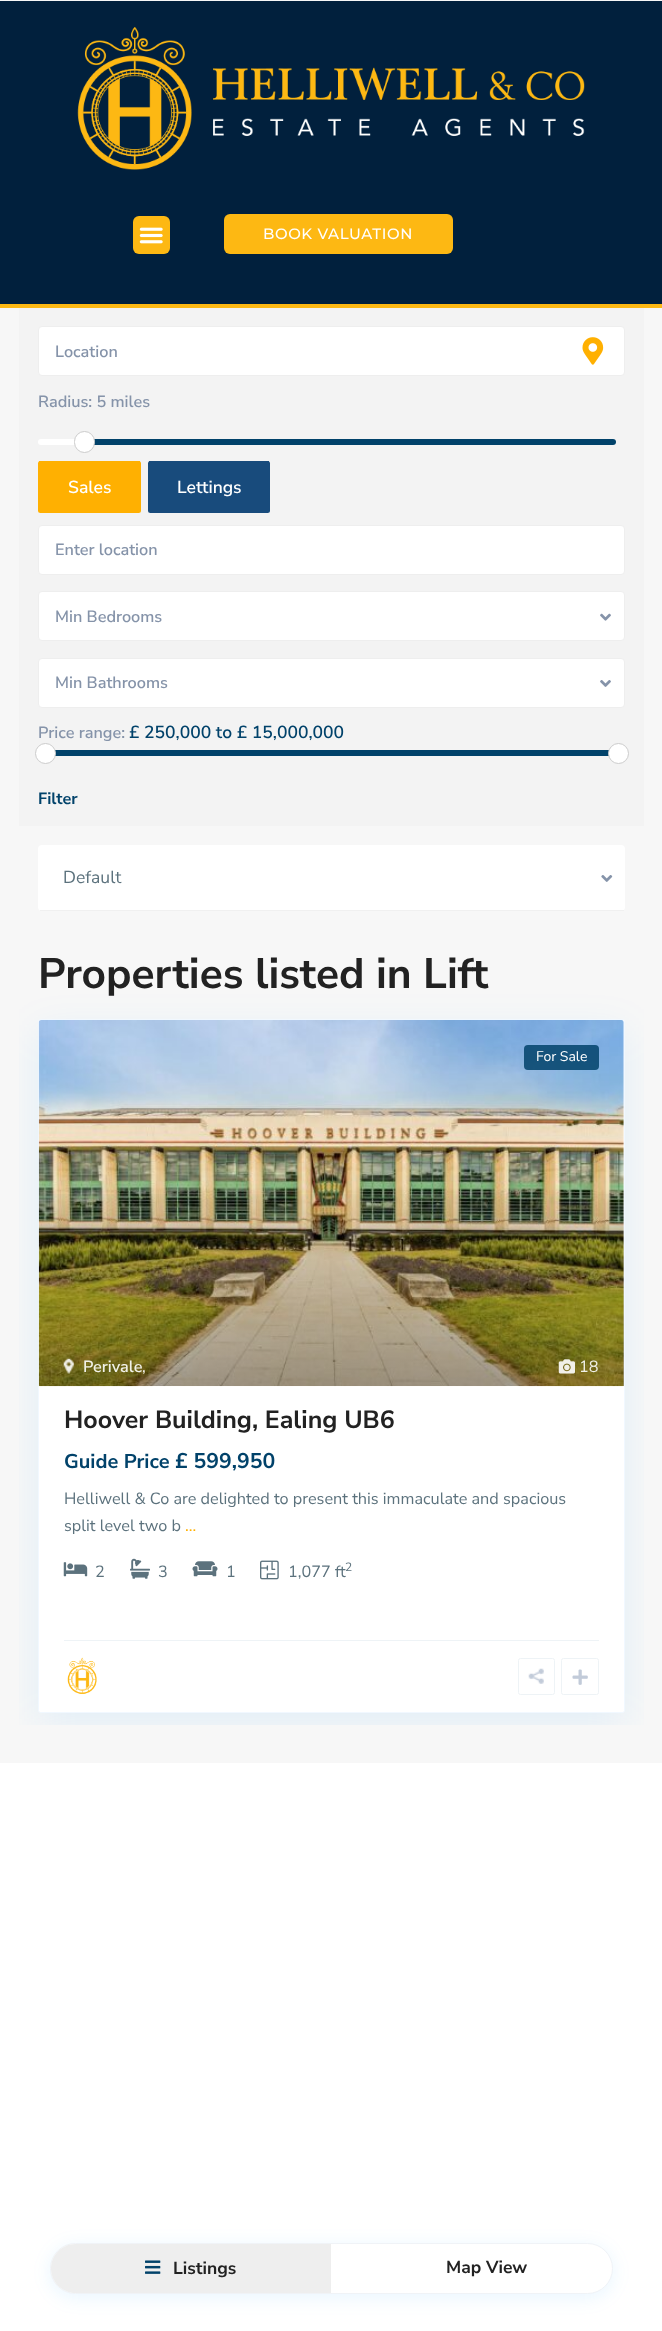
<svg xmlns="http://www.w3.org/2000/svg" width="662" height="2331">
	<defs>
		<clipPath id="clip1"><rect x="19" y="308" width="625" height="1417" /></clipPath>
		<linearGradient id="g1" gradientUnits="userSpaceOnUse" x1="331" y1="1386" x2="331" y2="1020"><stop offset="0" stop-color="#000000" stop-opacity="0.34" /><stop offset="0.56" stop-color="#000000" stop-opacity="0" /></linearGradient>
	</defs>
	<rect width="100%" height="100%" fill="#FFFFFF" />
	<rect x="0" y="0" width="662" height="1763" fill="#F7F7F7" />
	<rect x="0" y="1" width="662" height="303" fill="#01203D" />
	<rect x="0" y="304" width="662" height="4" fill="#FDB813" />
	<image x="77" y="27" width="508" height="143" href="assets/img1.png" />
	<rect x="133" y="216" width="37" height="38" rx="6" fill="#FDB813" />
	<image x="139" y="227" width="24" height="17" href="assets/img2.png" />
	<rect x="224" y="214" width="229" height="40" rx="6" fill="#FDB813" />
	<text x="263" y="239" font-family="Montserrat" font-size="15" font-weight="500" letter-spacing="0.6" fill="#FFFFFF">BOOK VALUATION</text>
	<rect x="19" y="308" width="625" height="518" fill="#F3F3F3" />
	<rect x="38.5" y="326.5" width="586" height="49" rx="3.5" fill="#FFFFFF" stroke="#EEEEEE" />
	<text x="55" y="357" font-family="Nunito Sans" font-size="16.25" font-weight="600" fill="#8593A9">Location</text>
	<image x="582" y="337" width="22" height="28" href="assets/img3.png" />
	<text x="38" y="407" font-family="Nunito Sans" font-size="16.25" font-weight="600" fill="#8593A9">Radius: 5 miles</text>
	<rect x="38" y="439" width="578" height="6" rx="3" fill="#FFFFFF" />
	<rect x="85" y="439" width="531" height="6" rx="3" fill="#01426A" />
	<rect x="74.5" y="431.5" width="20" height="21" rx="10" fill="#FFFFFF" stroke="#CCCCCC" />
	<rect x="38" y="461" width="103" height="52" rx="2.5" fill="#FFB001" />
	<rect x="39" y="461" width="101" height="1" fill="#FFB001" />
	<rect x="140" y="463" width="1" height="48" fill="#FFB001" />
	<rect x="38" y="463" width="1" height="48" fill="#FFB001" />
	<text x="68" y="493" font-family="Nunito Sans" font-size="17.5" font-weight="600" fill="#FFFFFF">Sales</text>
	<rect x="148" y="461" width="122" height="52" rx="2.5" fill="#184B7C" />
	<rect x="149" y="461" width="120" height="1" fill="#184B7C" />
	<rect x="148" y="463" width="1" height="48" fill="#184B7C" />
	<text x="177" y="493" font-family="Nunito Sans" font-size="17.5" font-weight="600" fill="#FFFFFF">Lettings</text>
	<rect x="38.5" y="525.5" width="586" height="49" rx="3.5" fill="#FFFFFF" stroke="#EEEEEE" />
	<text x="55" y="555" font-family="Nunito Sans" font-size="16.25" font-weight="600" fill="#8593A9">Enter location</text>
	<rect x="38.5" y="591.5" width="586" height="49" rx="3.5" fill="#FFFFFF" stroke="#EEEEEE" />
	<text x="55" y="622" font-family="Nunito Sans" font-size="16.25" font-weight="600" fill="#8593A9">Min Bedrooms</text>
	<image x="600" y="613" width="11" height="8" href="assets/img4.png" />
	<rect x="38.5" y="658.5" width="586" height="49" rx="3.5" fill="#FFFFFF" stroke="#EEEEEE" />
	<text x="55" y="688" font-family="Nunito Sans" font-size="16.25" font-weight="600" fill="#8593A9">Min Bathrooms</text>
	<image x="600" y="680" width="11" height="7" href="assets/img5.png" />
	<text x="38" y="738" font-family="Nunito Sans" font-size="16.25" font-weight="600" fill="#8593A9">Price range:</text>
	<text x="129" y="738" font-family="Nunito Sans" font-size="17.5" font-weight="600" fill="#01426A">£ 250,000 to £ 15,000,000</text>
	<rect x="55" y="750" width="554" height="6" fill="#01426A" />
	<circle cx="45.5" cy="753.5" r="10" fill="#FFFFFF" stroke="#CCCCCC" />
	<circle cx="618.5" cy="753.5" r="10" fill="#FFFFFF" stroke="#CCCCCC" />
	<text x="38" y="804" font-family="Nunito Sans" font-size="16.25" font-weight="700" fill="#01426A">Filter</text>
	<rect x="38" y="845" width="587" height="66" rx="4" fill="#FFFFFF" />
	<rect x="40" y="910" width="584" height="1" fill="#F0F0F0" />
	<text x="63" y="883" font-family="Nunito Sans" font-size="17.5" fill="#5C727D">Default</text>
	<image x="601" y="875" width="12" height="7" href="assets/img6.png" />
	<text x="38" y="988" font-family="Nunito Sans" font-size="42.5" font-weight="700" fill="#222222">Properties listed in Lift</text>
	<g clip-path="url(#clip1)">
		<rect x="38" y="1031" width="587" height="694" rx="2.5" fill="#0798FF" fill-opacity="0.09" filter="blur(19.5px)" />
	</g>
	<rect x="38.5" y="1019.5" width="586" height="693" rx="2" fill="#FFFFFF" stroke="#F1F8FF" />
	<image x="38" y="1020" width="586" height="367" href="assets/img7.png" />
	<rect x="524" y="1045" width="75" height="25" rx="4" fill="#01426A" fill-opacity="0.85" />
	<text x="536" y="1061" font-family="Nunito Sans" font-size="14" fill="#FFFFFF">For Sale</text>
	<rect x="39" y="1194" width="585" height="192" fill="url(#g1)" />
	<image x="63" y="1358" width="11" height="16" href="assets/img8.png" />
	<text x="83" y="1372" font-family="Nunito Sans" font-size="16.25" font-weight="600" fill="#F1F1E8">Perivale</text>
	<text x="142" y="1372" font-family="Nunito Sans" font-size="16.25" fill="#F1F1E8">,</text>
	<image x="558" y="1359" width="17" height="15" href="assets/img9.png" />
	<text x="579" y="1372" font-family="Nunito Sans" font-size="16.25" fill="#F1F1E8">18</text>
	<text x="64" y="1428" font-family="Nunito Sans" font-size="25" font-weight="700" fill="#222222">Hoover Building, Ealing UB6</text>
	<text x="64" y="1468" font-family="Nunito Sans" font-size="20" font-weight="700" fill="#01426A">Guide Price</text>
	<text x="175" y="1468" font-family="Nunito Sans" font-size="21.25" font-weight="700" fill="#01426A">£ 599,950</text>
	<g font-family="Nunito Sans" font-size="16.25" fill="#5C727D">
		<text x="64" y="1504">Helliwell &amp; Co are delighted to present this immaculate and spacious</text>
		<text x="64" y="1531">split level two b</text>
	</g>
	<text x="185" y="1531" font-family="Nunito Sans" font-size="16.25" fill="#FFB001">...</text>
	<image x="63" y="1562" width="25" height="15" href="assets/img10.png" />
	<text x="95" y="1577" font-family="Nunito Sans" font-size="16.25" fill="#5C727D">2</text>
	<image x="130" y="1558" width="20" height="21" href="assets/img11.png" />
	<text x="158" y="1577" font-family="Nunito Sans" font-size="16.25" fill="#5C727D">3</text>
	<image x="192" y="1561" width="26" height="16" href="assets/img12.png" />
	<text x="226" y="1577" font-family="Nunito Sans" font-size="16.25" fill="#5C727D">1</text>
	<image x="260" y="1560" width="19" height="20" href="assets/img13.png" />
	<text x="288" y="1577" font-family="Nunito Sans" font-size="16.25" fill="#5C727D">1,077 ft</text>
	<text x="345" y="1571" font-family="Nunito Sans" font-size="12" fill="#5C727D">2</text>
	<rect x="64" y="1640" width="535" height="1" fill="#EEF3F6" />
	<image x="67" y="1657" width="30" height="37" href="assets/img14.png" />
	<image x="528" y="1668" width="16" height="16" href="assets/img15.png" />
	<rect x="518.5" y="1658.5" width="36" height="36" rx="2" fill="none" stroke="#EEF3F6" />
	<rect x="561.5" y="1658.5" width="37" height="36" rx="2" fill="none" stroke="#EEF3F6" />
	<image x="572" y="1669" width="16" height="16" href="assets/img16.png" />
	<rect x="50" y="2246" width="563" height="52" rx="26" fill="#0798FF" fill-opacity="0.09" filter="blur(9px)" />
	<rect x="50.5" y="2243.5" width="562" height="50" rx="25" fill="#FFFFFF" stroke="#F0F3F7" />
	<path d="M75.5 2244H331V2293H75.5C62 2293 51 2282 51 2268.5C51 2255 62 2244 75.5 2244Z" fill="#EEEEEE" />
	<image x="145" y="2260" width="16" height="14" href="assets/img17.png" />
	<g font-family="Nunito Sans" font-size="17.5" font-weight="700" fill="#222222">
		<text x="173" y="2274">Listings</text>
		<text x="446" y="2273">Map View</text>
	</g>
</svg>
